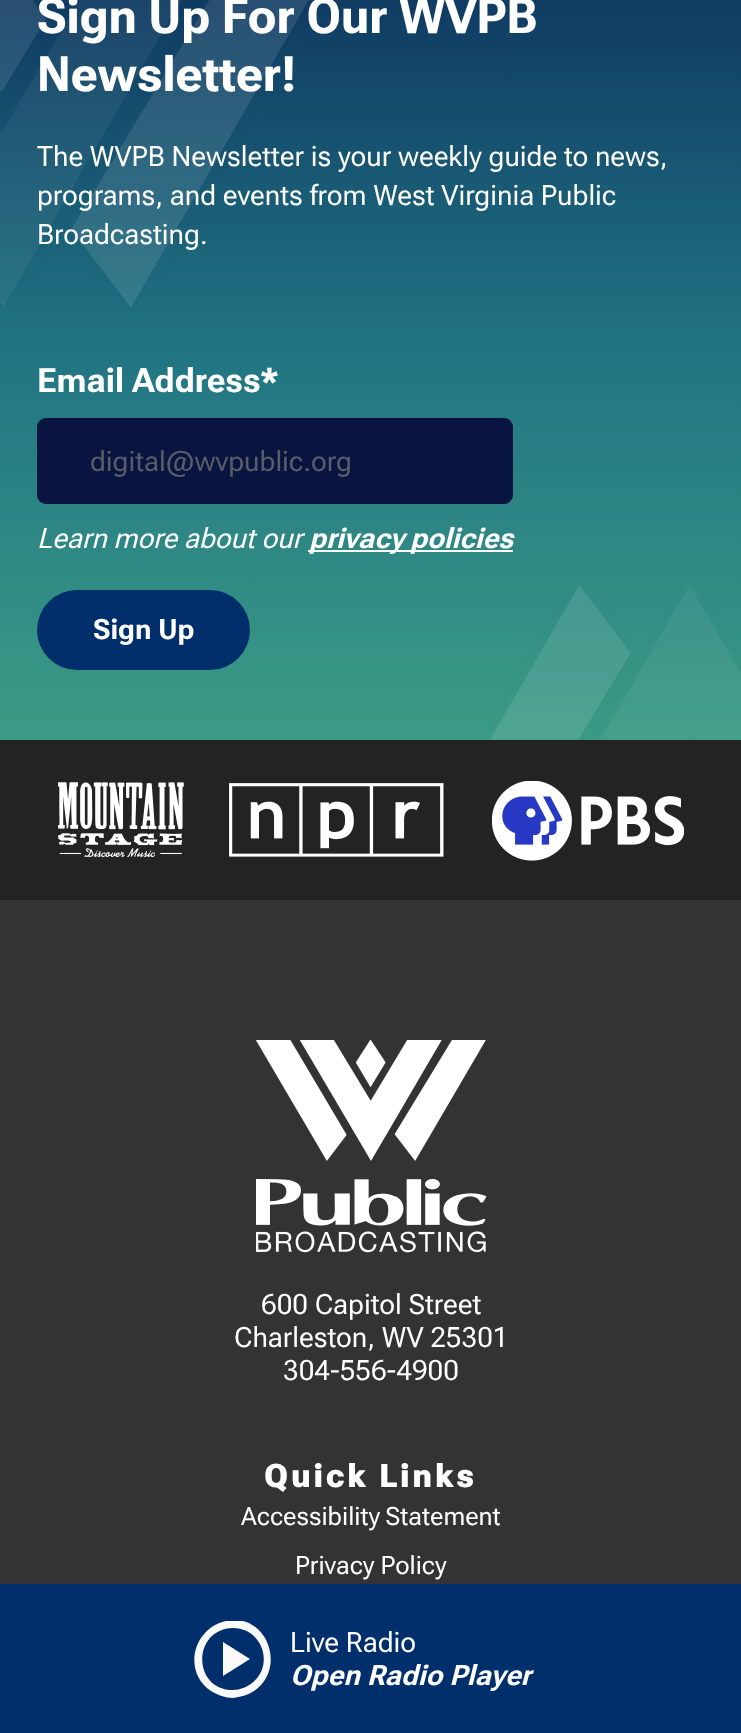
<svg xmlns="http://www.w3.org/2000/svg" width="741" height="1733">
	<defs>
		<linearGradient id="g1" gradientUnits="userSpaceOnUse" x1="371" y1="-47" x2="371" y2="740"><stop offset="0" stop-color="#0D335E" /><stop offset="0.5" stop-color="#217483" /><stop offset="1" stop-color="#3B9B85" /></linearGradient>
		<clipPath id="clip1"><rect x="194" y="1621" width="77" height="77" /></clipPath>
	</defs>
	<rect width="100%" height="100%" fill="#333333" />
	<rect x="0" y="0" width="741" height="740" fill="url(#g1)" />
	<image x="0" y="0" width="309" height="307" href="assets/img1.png" />
	<g font-family="Roboto Flex" font-size="49" font-weight="700" fill="#FFFFFF">
		<text x="37" y="33">Sign Up For Our WVPB</text>
		<text x="37" y="91">Newsletter!</text>
	</g>
	<g font-family="Roboto Flex" font-size="28" fill="#FFFFFF">
		<text x="37" y="166">The WVPB Newsletter is your weekly guide to news,</text>
		<text x="37" y="205">programs, and events from West Virginia Public</text>
		<text x="37" y="244">Broadcasting.</text>
	</g>
	<text x="37" y="392" font-family="'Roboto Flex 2'" font-size="33.5" font-weight="700" fill="#FFFFFF">Email Address*</text>
	<rect x="37" y="418" width="476" height="86" rx="9" fill="#091540" />
	<text x="90" y="471" font-family="Roboto Flex" font-size="28" fill="#5A5D68">digital@wvpublic.org</text>
	<text x="37" y="548" font-family="Roboto Flex" font-size="28" font-style="italic" fill="#FFFFFF">Learn more about our</text>
	<rect x="308" y="550" width="205" height="2" fill="#FFFFFF" />
	<text x="309" y="548" word-spacing="-1" font-family="Roboto Flex" font-size="28" font-weight="700" font-style="italic" fill="#FFFFFF">privacy policies</text>
	<rect x="37" y="590" width="213" height="80" rx="40" fill="#002F6C" />
	<text x="93" y="639" font-family="'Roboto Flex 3'" font-size="28" font-weight="700" fill="#FFFFFF">Sign Up</text>
	<image x="490" y="585" width="251" height="155" href="assets/img2.png" />
	<rect x="0" y="740" width="741" height="160" fill="#232323" />
	<image x="58" y="782" width="126" height="75" href="assets/img3.png" />
	<image x="229" y="783" width="215" height="74" href="assets/img4.png" />
	<image x="492" y="781" width="192" height="80" href="assets/img5.png" />
	<image x="256" y="1040" width="231" height="213" href="assets/img6.png" />
	<g font-family="Roboto Flex" font-size="28" fill="#FFFFFF">
		<text x="261" y="1314">600 Capitol Street</text>
		<text x="234" y="1347">Charleston, WV 25301</text>
		<text x="283" y="1380">304-556-4900</text>
	</g>
	<text x="264" y="1487" font-family="Roboto Flex" font-size="32.25" font-weight="900" letter-spacing="2.75" fill="#FFFFFF">Quick Links</text>
	<g font-family="'Roboto Flex 2'" font-size="25.25" fill="#FFFFFF">
		<text x="241" y="1525" word-spacing="-1">Accessibility Statement</text>
		<text x="295" y="1574">Privacy Policy</text>
	</g>
	<rect x="0" y="1584" width="741" height="149" fill="#002F6C" />
	<g clip-path="url(#clip1)">
		<path d="M223 1676L250 1659L223 1642ZM233 1698C225 1698 218 1695 211 1691C180 1670 195 1622 233 1620C270 1619 285 1670 254 1691C248 1695 240 1697 233 1698ZM233 1690C240 1690 247 1687 252 1683C275 1665 262 1628 233 1628C192 1629 192 1690 233 1690Z" fill="#FAFAFA" />
	</g>
	<text x="290" y="1652" font-family="Roboto Flex" font-size="28" fill="#FFFFFF">Live Radio</text>
	<text x="290" y="1685" font-family="Roboto Flex" font-size="28" font-weight="700" font-style="italic" fill="#FFFFFF">Open Radio Player</text>
</svg>
